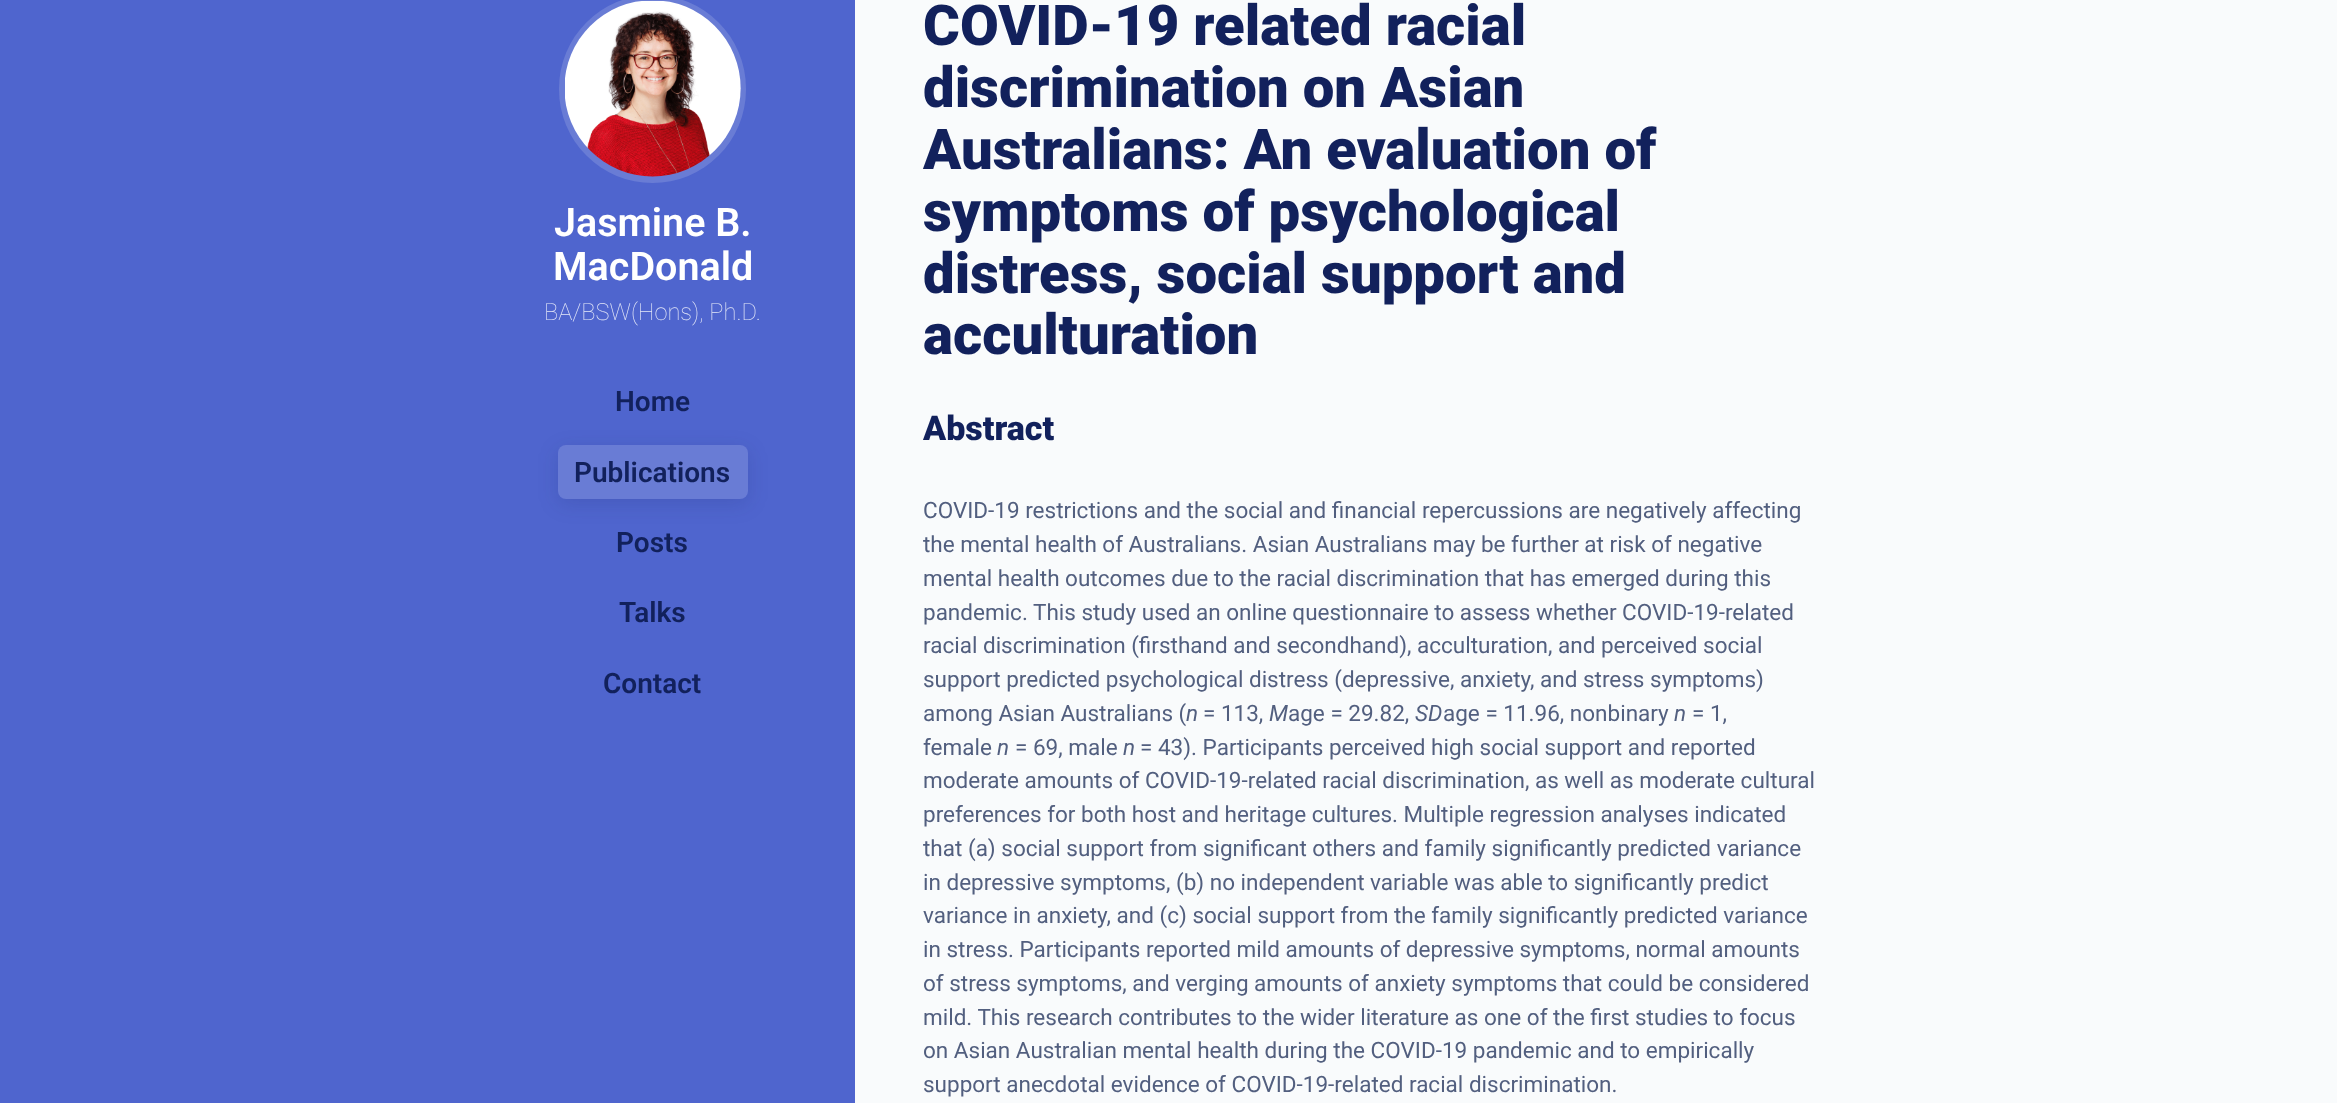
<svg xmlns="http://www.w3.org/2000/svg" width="2337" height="1103">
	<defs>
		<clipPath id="clip1"><path d="M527 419H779V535H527ZM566 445H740C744.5 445 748 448.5 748 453V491C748 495.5 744.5 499 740 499H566C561.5 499 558 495.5 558 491V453C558 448.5 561.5 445 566 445Z" clip-rule="evenodd" /></clipPath>
	</defs>
	<rect width="100%" height="100%" fill="#4F65CE" />
	<rect x="855" y="0" width="1482" height="1103" fill="#F9FBFC" />
	<rect x="559" y="-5" width="187" height="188" rx="93.5" fill="#697CD5" />
	<image x="565" y="0" width="176" height="177" href="assets/img1.png" />
	<g font-family="Roboto" font-size="39.5" font-weight="600" fill="#FFFFFF">
		<text x="554" y="236">Jasmine B.</text>
		<text x="553" y="280">MacDonald</text>
	</g>
	<text x="544" y="320" font-family="Roboto" font-size="23.6" font-weight="100" fill="#E5E8F8">BA/BSW(Hons), Ph.D.</text>
	<text x="615" y="411" font-family="Roboto" font-size="28" font-weight="600" fill="#12215C">Home</text>
	<g clip-path="url(#clip1)">
		<rect x="558" y="450" width="190" height="54" rx="8" fill="#12215C" fill-opacity="0.15" filter="blur(10px)" />
	</g>
	<rect x="558" y="445" width="190" height="54" rx="8" fill="#FFFFFF" fill-opacity="0.15" />
	<g font-family="Roboto" font-size="28" font-weight="600" fill="#12215C">
		<text x="574" y="482">Publications</text>
		<text x="616" y="552">Posts</text>
		<text x="619" y="622">Talks</text>
		<text x="603" y="693">Contact</text>
	</g>
	<g font-family="Roboto" font-size="56.25" font-weight="900" fill="#12215C">
		<text x="923" y="45">COVID-19 related racial</text>
		<text x="923" y="107">discrimination on Asian</text>
		<text x="923" y="169">Australians: An evaluation of</text>
		<text x="923" y="231">symptoms of psychological</text>
		<text x="923" y="293">distress, social support and</text>
		<text x="923" y="354">acculturation</text>
	</g>
	<text x="923" y="440" font-family="Roboto" font-size="34" font-weight="900" fill="#12215C">Abstract</text>
	<g font-family="Roboto" font-size="22.5" fill="#525F7F">
		<text x="923" y="518">COVID-19 restrictions and the social and financial repercussions are negatively affecting</text>
		<text x="923" y="552">the mental health of Australians. Asian Australians may be further at risk of negative</text>
		<text x="923" y="586">mental health outcomes due to the racial discrimination that has emerged during this</text>
		<text x="923" y="620">pandemic. This study used an online questionnaire to assess whether COVID-19-related</text>
		<text x="923" y="653">racial discrimination (firsthand and secondhand), acculturation, and perceived social</text>
		<text x="923" y="687">support predicted psychological distress (depressive, anxiety, and stress symptoms)</text>
		<text x="923" y="721">among Asian Australians (</text>
	</g>
	<text x="1186" y="721" font-family="Roboto" font-size="22.5" font-style="italic" fill="#525F7F">n</text>
	<text x="1203" y="721" font-family="Roboto" font-size="22.5" fill="#525F7F">= 113,</text>
	<text x="1269" y="721" font-family="Roboto" font-size="22.5" font-style="italic" fill="#525F7F">M</text>
	<text x="1288" y="721" font-family="Roboto" font-size="22.5" fill="#525F7F">age = 29.82,</text>
	<text x="1415" y="721" font-family="Roboto" font-size="22.5" font-style="italic" fill="#525F7F">SD</text>
	<text x="1443" y="721" font-family="Roboto" font-size="22.5" fill="#525F7F">age = 11.96, nonbinary</text>
	<text x="1674" y="721" font-family="Roboto" font-size="22.5" font-style="italic" fill="#525F7F">n</text>
	<g font-family="Roboto" font-size="22.5" fill="#525F7F">
		<text x="1692" y="721">= 1,</text>
		<text x="923" y="755">female</text>
	</g>
	<text x="997" y="755" font-family="Roboto" font-size="22.5" font-style="italic" fill="#525F7F">n</text>
	<text x="1015" y="755" font-family="Roboto" font-size="22.5" fill="#525F7F">= 69, male</text>
	<text x="1123" y="755" font-family="Roboto" font-size="22.5" font-style="italic" fill="#525F7F">n</text>
	<g font-family="Roboto" font-size="22.5" fill="#525F7F">
		<text x="1140" y="755">= 43). Participants perceived high social support and reported</text>
		<text x="923" y="788">moderate amounts of COVID-19-related racial discrimination, as well as moderate cultural</text>
		<text x="923" y="822">preferences for both host and heritage cultures. Multiple regression analyses indicated</text>
		<text x="923" y="856">that (a) social support from significant others and family significantly predicted variance</text>
		<text x="923" y="890">in depressive symptoms, (b) no independent variable was able to significantly predict</text>
		<text x="923" y="923">variance in anxiety, and (c) social support from the family significantly predicted variance</text>
		<text x="923" y="957">in stress. Participants reported mild amounts of depressive symptoms, normal amounts</text>
		<text x="923" y="991">of stress symptoms, and verging amounts of anxiety symptoms that could be considered</text>
		<text x="923" y="1025">mild. This research contributes to the wider literature as one of the first studies to focus</text>
		<text x="923" y="1058">on Asian Australian mental health during the COVID-19 pandemic and to empirically</text>
		<text x="923" y="1092">support anecdotal evidence of COVID-19-related racial discrimination.</text>
	</g>
</svg>
